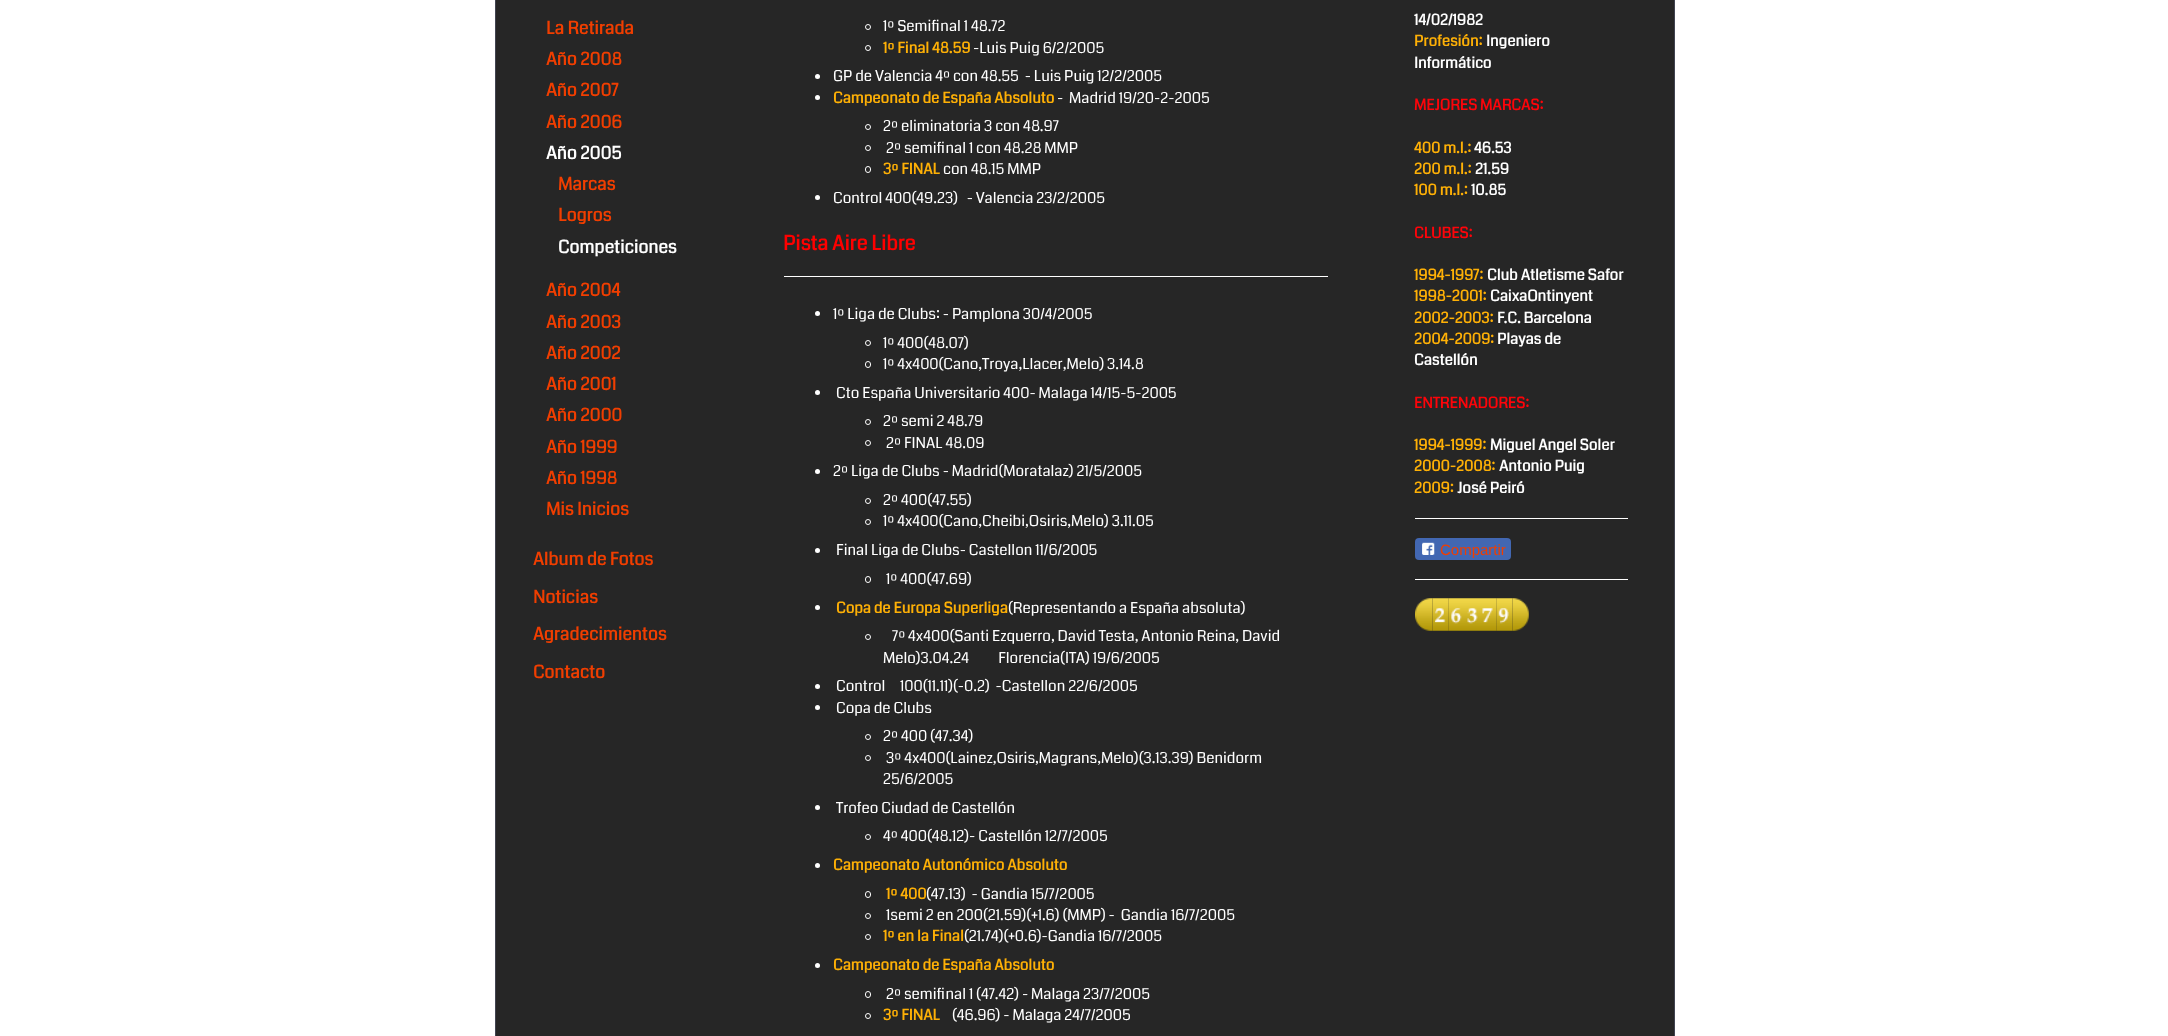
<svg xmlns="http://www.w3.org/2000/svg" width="2168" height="1036">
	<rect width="100%" height="100%" fill="#FFFFFF" />
	<rect x="495.5" y="-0.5" width="1179" height="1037" fill="#262626" stroke="#414350" />
	<g font-family="Coda" font-size="17.5" font-weight="700" fill="#F03E00">
		<text x="546" y="34">La Retirada</text>
		<text x="546" y="65">Año 2008</text>
		<text x="546" y="96">Año 2007</text>
		<text x="546" y="128">Año 2006</text>
	</g>
	<text x="546" y="159" font-family="Coda" font-size="17.5" font-weight="700" fill="#FFFFFF">Año 2005</text>
	<g font-family="Coda" font-size="17.5" font-weight="700" fill="#F03E00">
		<text x="558" y="190">Marcas</text>
		<text x="558" y="221">Logros</text>
	</g>
	<text x="558" y="253" font-family="Coda" font-size="17.5" font-weight="700" fill="#FFFFFF">Competiciones</text>
	<g font-family="Coda" font-size="17.5" font-weight="700" fill="#F03E00">
		<text x="546" y="296">Año 2004</text>
		<text x="546" y="328">Año 2003</text>
		<text x="546" y="359">Año 2002</text>
		<text x="546" y="390">Año 2001</text>
		<text x="546" y="421">Año 2000</text>
		<text x="546" y="453">Año 1999</text>
		<text x="546" y="484">Año 1998</text>
		<text x="546" y="515">Mis Inicios</text>
		<text x="533" y="565">Album de Fotos</text>
		<text x="533" y="603">Noticias</text>
		<text x="533" y="640">Agradecimientos</text>
		<text x="533" y="678">Contacto</text>
	</g>
	<circle cx="868" cy="27" r="2.5" fill="none" stroke="#FFFFFF" />
	<text x="883" y="31" font-family="Coda" font-size="15" fill="#FFFFFF">1º Semifinal 1 48.72</text>
	<circle cx="868" cy="48" r="2.5" fill="none" stroke="#FFFFFF" />
	<text x="883" y="53" font-family="Coda" font-size="15" font-weight="700" fill="#FEB006">1º Final 48.59</text>
	<text x="973" y="53" font-family="Coda" font-size="15" fill="#FFFFFF">-Luis Puig 6/2/2005</text>
	<circle cx="817.5" cy="76.5" r="2.5" fill="#FFFFFF" />
	<text x="833" y="81" font-family="Coda" font-size="15" fill="#FFFFFF" xml:space="preserve">GP de Valencia 4º con 48.55  - Luis Puig 12/2/2005</text>
	<circle cx="817.5" cy="97.5" r="2.5" fill="#FFFFFF" />
	<text x="833" y="103" font-family="Coda" font-size="15" font-weight="700" fill="#FEB006">Campeonato de España Absoluto</text>
	<text x="1057" y="103" font-family="Coda" font-size="15" fill="#FFFFFF" xml:space="preserve">-  Madrid 19/20-2-2005</text>
	<circle cx="868" cy="127" r="2.5" fill="none" stroke="#FFFFFF" />
	<text x="883" y="131" font-family="Coda" font-size="15" fill="#FFFFFF">2º eliminatoria 3 con 48.97</text>
	<circle cx="868" cy="148" r="2.5" fill="none" stroke="#FFFFFF" />
	<text x="886" y="153" font-family="Coda" font-size="15" fill="#FFFFFF">2º semifinal 1 con 48.28 MMP</text>
	<rect x="865.5" y="166.5" width="5" height="6" rx="2.5" fill="none" stroke="#FFFFFF" />
	<text x="883" y="174" font-family="Coda" font-size="15" font-weight="700" fill="#FEB006">3º FINAL</text>
	<text x="943" y="174" font-family="Coda" font-size="15" fill="#FFFFFF">con 48.15 MMP</text>
	<circle cx="817.5" cy="197.5" r="2.5" fill="#FFFFFF" />
	<text x="833" y="203" font-family="Coda" font-size="15" fill="#FFFFFF" xml:space="preserve">Control 400(49.23)   - Valencia 23/2/2005</text>
	<text x="783" y="250" font-family="Coda" font-size="20" font-weight="700" fill="#FF0000">Pista Aire Libre</text>
	<rect x="784" y="276" width="544" height="1" fill="#FFFFFF" />
	<circle cx="817.5" cy="313.5" r="2.5" fill="#FFFFFF" />
	<text x="833" y="319" font-family="Coda" font-size="15" fill="#FFFFFF">1º Liga de Clubs: - Pamplona 30/4/2005</text>
	<circle cx="868" cy="343" r="2.5" fill="none" stroke="#FFFFFF" />
	<text x="883" y="348" font-family="Coda" font-size="15" fill="#FFFFFF">1º 400(48.07)</text>
	<rect x="865.5" y="361.5" width="5" height="6" rx="2.5" fill="none" stroke="#FFFFFF" />
	<text x="883" y="369" font-family="Coda" font-size="15" fill="#FFFFFF">1º 4x400(Cano,Troya,Llacer,Melo) 3.14.8</text>
	<circle cx="817.5" cy="392.5" r="2.5" fill="#FFFFFF" />
	<text x="836" y="398" font-family="Coda" font-size="15" fill="#FFFFFF">Cto España Universitario 400- Malaga 14/15-5-2005</text>
	<circle cx="868" cy="422" r="2.5" fill="none" stroke="#FFFFFF" />
	<text x="883" y="426" font-family="Coda" font-size="15" fill="#FFFFFF">2º semi 2 48.79</text>
	<circle cx="868" cy="443" r="2.5" fill="none" stroke="#FFFFFF" />
	<text x="886" y="448" font-family="Coda" font-size="15" fill="#FFFFFF">2º FINAL 48.09</text>
	<circle cx="817.5" cy="471.5" r="2.5" fill="#FFFFFF" />
	<text x="833" y="476" font-family="Coda" font-size="15" fill="#FFFFFF">2º Liga de Clubs - Madrid(Moratalaz) 21/5/2005</text>
	<circle cx="868" cy="501" r="2.5" fill="none" stroke="#FFFFFF" />
	<text x="883" y="505" font-family="Coda" font-size="15" fill="#FFFFFF">2º 400(47.55)</text>
	<circle cx="868" cy="522" r="2.5" fill="none" stroke="#FFFFFF" />
	<text x="883" y="526" font-family="Coda" font-size="15" fill="#FFFFFF">1º 4x400(Cano,Cheibi,Osiris,Melo) 3.11.05</text>
	<circle cx="817.5" cy="550.5" r="2.5" fill="#FFFFFF" />
	<text x="836" y="555" font-family="Coda" font-size="15" fill="#FFFFFF">Final Liga de Clubs- Castellon 11/6/2005</text>
	<rect x="865.5" y="576.5" width="5" height="6" rx="2.5" fill="none" stroke="#FFFFFF" />
	<text x="886" y="584" font-family="Coda" font-size="15" fill="#FFFFFF">1º 400(47.69)</text>
	<circle cx="817.5" cy="607.5" r="2.5" fill="#FFFFFF" />
	<text x="836" y="613" font-family="Coda" font-size="15" font-weight="700" fill="#FEB006">Copa de Europa Superliga</text>
	<text x="1008" y="613" font-family="Coda" font-size="15" fill="#FFFFFF">(Representando a España absoluta)</text>
	<circle cx="868" cy="637" r="2.5" fill="none" stroke="#FFFFFF" />
	<g font-family="Coda" font-size="15" fill="#FFFFFF">
		<text x="892" y="641">7º 4x400(Santi Ezquerro, David Testa, Antonio Reina, David</text>
		<text x="883" y="663" xml:space="preserve">Melo)3.04.24          Florencia(ITA) 19/6/2005</text>
	</g>
	<circle cx="817.5" cy="686.5" r="2.5" fill="#FFFFFF" />
	<text x="836" y="691" font-family="Coda" font-size="15" fill="#FFFFFF" xml:space="preserve">Control     100(11.11)(-0.2)  -Castellon 22/6/2005</text>
	<circle cx="817.5" cy="707.5" r="2.5" fill="#FFFFFF" />
	<text x="836" y="713" font-family="Coda" font-size="15" fill="#FFFFFF">Copa de Clubs</text>
	<circle cx="868" cy="737" r="2.5" fill="none" stroke="#FFFFFF" />
	<text x="883" y="741" font-family="Coda" font-size="15" fill="#FFFFFF">2º 400 (47.34)</text>
	<circle cx="868" cy="758" r="2.5" fill="none" stroke="#FFFFFF" />
	<g font-family="Coda" font-size="15" fill="#FFFFFF">
		<text x="886" y="763">3º 4x400(Lainez,Osiris,Magrans,Melo)(3.13.39) Benidorm</text>
		<text x="883" y="784">25/6/2005</text>
	</g>
	<circle cx="817.5" cy="807.5" r="2.5" fill="#FFFFFF" />
	<text x="836" y="813" font-family="Coda" font-size="15" fill="#FFFFFF">Trofeo Ciudad de Castellón</text>
	<circle cx="868" cy="837" r="2.5" fill="none" stroke="#FFFFFF" />
	<text x="883" y="841" font-family="Coda" font-size="15" fill="#FFFFFF">4º 400(48.12)- Castellón 12/7/2005</text>
	<circle cx="817.5" cy="865.5" r="2.5" fill="#FFFFFF" />
	<text x="833" y="870" font-family="Coda" font-size="15" font-weight="700" fill="#FEB006">Campeonato Autonómico Absoluto</text>
	<rect x="865.5" y="891.5" width="5" height="6" rx="2.5" fill="none" stroke="#FFFFFF" />
	<text x="886" y="899" font-family="Coda" font-size="15" font-weight="700" fill="#FEB006">1º 400</text>
	<text x="926" y="899" font-family="Coda" font-size="15" fill="#FFFFFF" xml:space="preserve">(47.13)  - Gandia 15/7/2005</text>
	<circle cx="868" cy="916" r="2.5" fill="none" stroke="#FFFFFF" />
	<text x="886" y="920" font-family="Coda" font-size="15" fill="#FFFFFF" xml:space="preserve">1semi 2 en 200(21.59)(+1.6) (MMP) -  Gandia 16/7/2005</text>
	<circle cx="868" cy="937" r="2.5" fill="none" stroke="#FFFFFF" />
	<text x="883" y="941" font-family="Coda" font-size="15" font-weight="700" fill="#FEB006">1º en la Final</text>
	<text x="964" y="941" font-family="Coda" font-size="15" fill="#FFFFFF">(21.74)(+0.6)-Gandia 16/7/2005</text>
	<circle cx="817.5" cy="965.5" r="2.5" fill="#FFFFFF" />
	<text x="833" y="970" font-family="Coda" font-size="15" font-weight="700" fill="#FEB006">Campeonato de España Absoluto</text>
	<rect x="865.5" y="991.5" width="5" height="6" rx="2.5" fill="none" stroke="#FFFFFF" />
	<text x="886" y="999" font-family="Coda" font-size="15" fill="#FFFFFF">2º semifinal 1 (47.42) - Malaga 23/7/2005</text>
	<circle cx="868" cy="1016" r="2.5" fill="none" stroke="#FFFFFF" />
	<text x="883" y="1020" font-family="Coda" font-size="15" font-weight="700" fill="#FEB006">3º FINAL</text>
	<text x="952" y="1020" font-family="Coda" font-size="15" fill="#FFFFFF">(46.96) - Malaga 24/7/2005</text>
	<text x="1414" y="25" font-family="Coda" font-size="15" font-weight="700" fill="#FFFFFF">14/02/1982</text>
	<text x="1414" y="46" font-family="Coda" font-size="15" font-weight="700" fill="#FEB006">Profesión:</text>
	<g font-family="Coda" font-size="15" font-weight="700" fill="#FFFFFF">
		<text x="1486" y="46">Ingeniero</text>
		<text x="1414" y="68">Informático</text>
	</g>
	<text x="1414" y="110" font-family="Coda" font-size="15" font-weight="700" fill="#FD040A">MEJORES MARCAS:</text>
	<text x="1414" y="153" font-family="Coda" font-size="15" font-weight="700" fill="#FEB006">400 m.l.:</text>
	<text x="1474" y="153" font-family="Coda" font-size="15" font-weight="700" fill="#FFFFFF">46.53</text>
	<text x="1414" y="174" font-family="Coda" font-size="15" font-weight="700" fill="#FEB006">200 m.l.:</text>
	<text x="1475" y="174" font-family="Coda" font-size="15" font-weight="700" fill="#FFFFFF">21.59</text>
	<text x="1414" y="195" font-family="Coda" font-size="15" font-weight="700" fill="#FEB006">100 m.l.:</text>
	<text x="1471" y="195" font-family="Coda" font-size="15" font-weight="700" fill="#FFFFFF">10.85</text>
	<text x="1414" y="238" font-family="Coda" font-size="15" font-weight="700" fill="#FD040A">CLUBES:</text>
	<text x="1414" y="280" font-family="Coda" font-size="15" font-weight="700" fill="#FEB006">1994-1997:</text>
	<text x="1487" y="280" font-family="Coda" font-size="15" font-weight="700" fill="#FFFFFF">Club Atletisme Safor</text>
	<text x="1414" y="301" font-family="Coda" font-size="15" font-weight="700" fill="#FEB006">1998-2001:</text>
	<text x="1490" y="301" font-family="Coda" font-size="15" font-weight="700" fill="#FFFFFF">CaixaOntinyent</text>
	<text x="1414" y="323" font-family="Coda" font-size="15" font-weight="700" fill="#FEB006">2002-2003:</text>
	<text x="1497" y="323" font-family="Coda" font-size="15" font-weight="700" fill="#FFFFFF">F.C. Barcelona</text>
	<text x="1414" y="344" font-family="Coda" font-size="15" font-weight="700" fill="#FEB006">2004-2009:</text>
	<g font-family="Coda" font-size="15" font-weight="700" fill="#FFFFFF">
		<text x="1497" y="344">Playas de</text>
		<text x="1414" y="365">Castellón</text>
	</g>
	<text x="1414" y="408" font-family="Coda" font-size="15" font-weight="700" fill="#FD040A">ENTRENADORES:</text>
	<text x="1414" y="450" font-family="Coda" font-size="15" font-weight="700" fill="#FEB006">1994-1999:</text>
	<text x="1490" y="450" font-family="Coda" font-size="15" font-weight="700" fill="#FFFFFF">Miguel Angel Soler</text>
	<text x="1414" y="471" font-family="Coda" font-size="15" font-weight="700" fill="#FEB006">2000-2008:</text>
	<text x="1499" y="471" font-family="Coda" font-size="15" font-weight="700" fill="#FFFFFF">Antonio Puig</text>
	<text x="1414" y="493" font-family="Coda" font-size="15" font-weight="700" fill="#FEB006">2009:</text>
	<text x="1457" y="493" font-family="Coda" font-size="15" font-weight="700" fill="#FFFFFF">José Peiró</text>
	<rect x="1415" y="518" width="213" height="1" fill="#FFFFFF" />
	<rect x="1415" y="538" width="96" height="22" rx="4" fill="#4267B2" />
	<image x="1422" y="542" width="13" height="13" href="assets/img1.png" />
	<text x="1440" y="555" font-family="Liberation Sans" font-size="15" fill="#F03E00">Compartir</text>
	<rect x="1415" y="579" width="213" height="1" fill="#FFFFFF" />
	<image x="1415" y="598" width="18" height="33" href="assets/img2.png" />
	<image x="1432" y="598" width="17" height="33" href="assets/img3.png" />
	<image x="1448" y="598" width="17" height="33" href="assets/img4.png" />
	<image x="1465" y="598" width="15" height="33" href="assets/img5.png" />
	<image x="1480" y="598" width="17" height="33" href="assets/img6.png" />
	<image x="1496" y="598" width="17" height="33" href="assets/img7.png" />
	<image x="1512" y="598" width="17" height="33" href="assets/img8.png" />
</svg>
